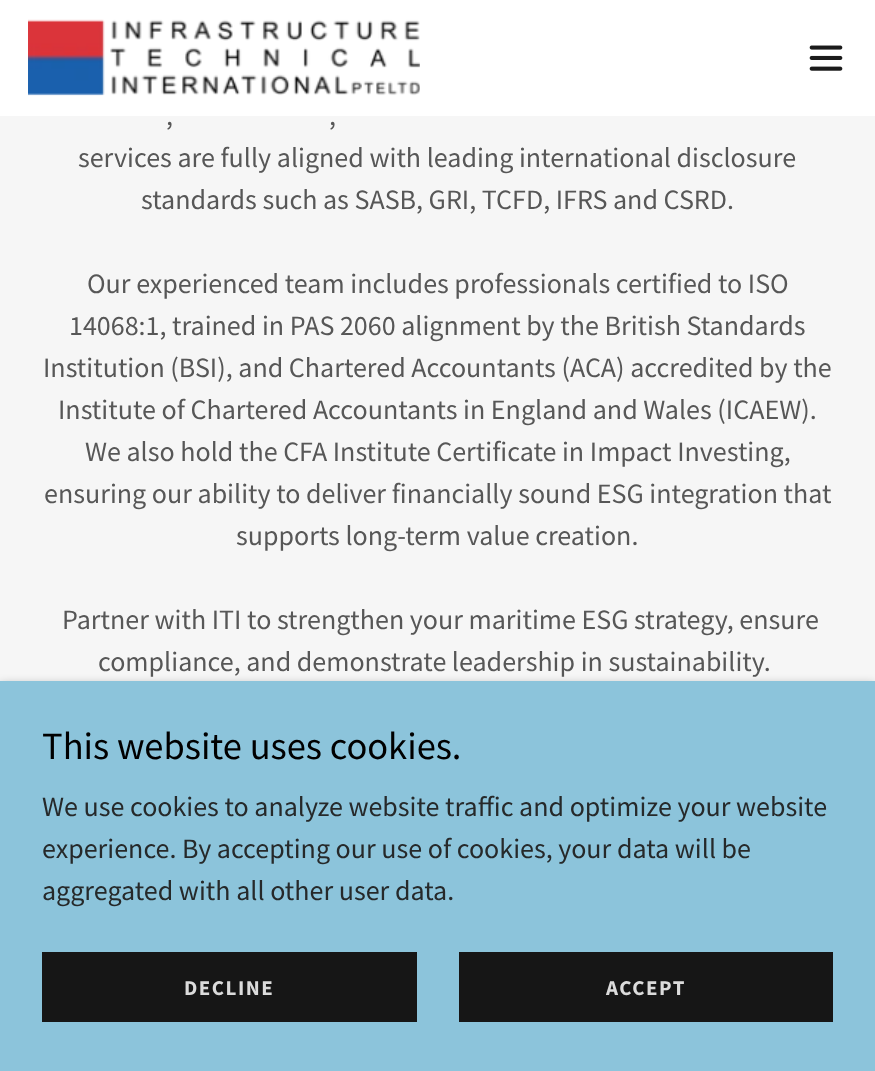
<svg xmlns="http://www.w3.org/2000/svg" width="875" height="1071">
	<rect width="100%" height="100%" fill="#F6F6F6" />
	<rect x="0" y="0" width="875" height="116" fill="#FFFFFF" />
	<image x="28" y="19" width="392" height="77" href="assets/img1.png" />
	<image x="809" y="45" width="34" height="26" href="assets/img2.png" />
	<g font-family="Source Sans Pro" font-size="28" fill="#575757">
		<text x="166" y="125">,</text>
		<text x="329" y="125">,</text>
		<text x="78" y="167">services are fully aligned with leading international disclosure</text>
		<text x="141" y="209">standards such as SASB, GRI, TCFD, IFRS and CSRD.</text>
		<text x="87" y="293">Our experienced team includes professionals certified to ISO</text>
		<text x="69" y="335">14068:1, trained in PAS 2060 alignment by the British Standards</text>
		<text x="43" y="377">Institution (BSI), and Chartered Accountants (ACA) accredited by the</text>
		<text x="58" y="419">Institute of Chartered Accountants in England and Wales (ICAEW).</text>
		<text x="85" y="461">We also hold the CFA Institute Certificate in Impact Investing,</text>
		<text x="44" y="503">ensuring our ability to deliver financially sound ESG integration that</text>
		<text x="236" y="545">supports long-term value creation.</text>
		<text x="62" y="629">Partner with ITI to strengthen your maritime ESG strategy, ensure</text>
		<text x="98" y="671">compliance, and demonstrate leadership in sustainability.</text>
	</g>
	<rect x="0" y="684" width="875" height="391" fill="#000000" fill-opacity="0.3" filter="blur(5px)" />
	<rect x="0" y="681" width="875" height="390" fill="#8CC4DB" />
	<text x="42" y="759" font-family="Source Sans Pro" font-size="38.5" fill="#000000">This website uses cookies.</text>
	<g font-family="Source Sans Pro" font-size="28" fill="#26292A">
		<text x="42" y="816">We use cookies to analyze website traffic and optimize your website</text>
		<text x="42" y="858">experience. By accepting our use of cookies, your data will be</text>
		<text x="42" y="900">aggregated with all other user data.</text>
	</g>
	<rect x="42" y="952" width="375" height="70" fill="#161616" />
	<text x="184" y="995" font-family="Source Sans Pro" font-size="21" font-weight="700" letter-spacing="1.5" fill="#DBDBDB">DECLINE</text>
	<rect x="459" y="952" width="374" height="70" fill="#161616" />
	<text x="606" y="995" font-family="Source Sans Pro" font-size="21" font-weight="700" letter-spacing="1.5" fill="#DBDBDB">ACCEPT</text>
</svg>
